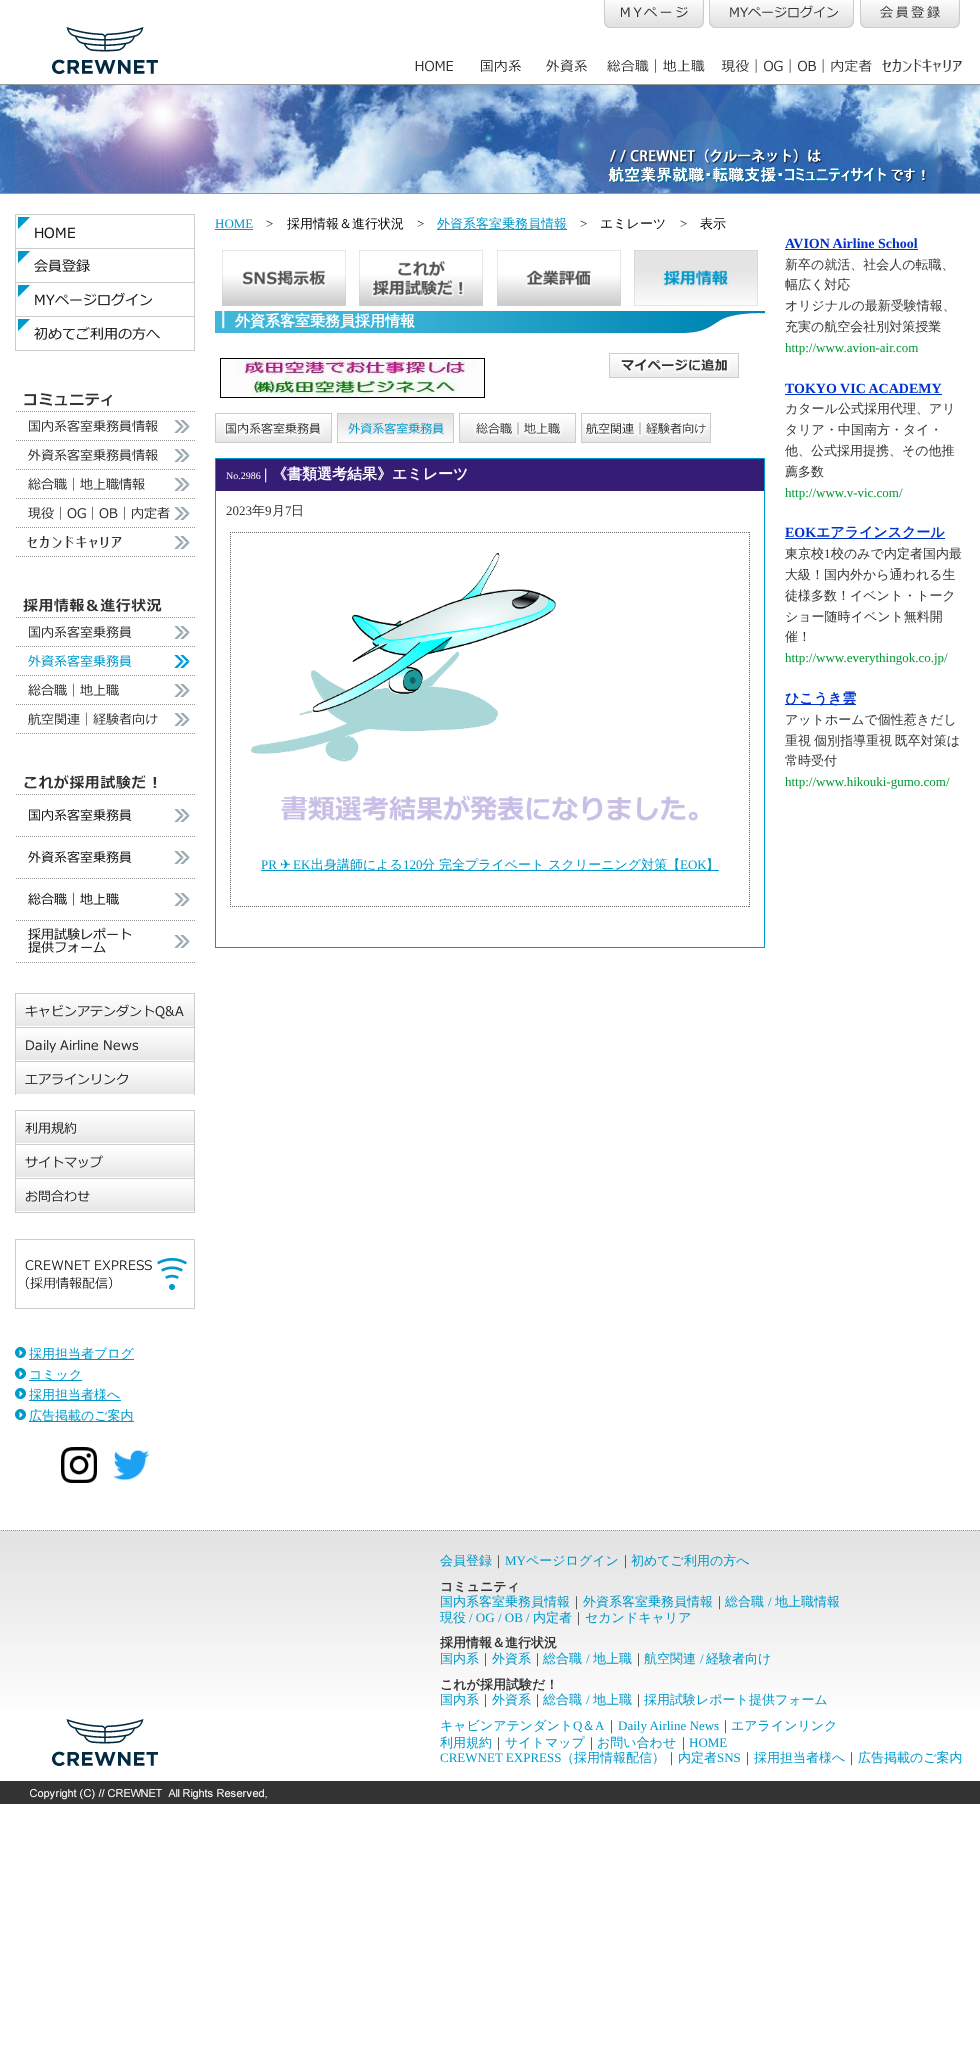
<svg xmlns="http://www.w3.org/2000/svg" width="980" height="2046">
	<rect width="100%" height="100%" fill="#FFFFFF" />
	<image x="52" y="27" width="106" height="47" href="assets/img1.png" />
	<image x="604" y="0" width="100" height="28" href="assets/img2.png" />
	<image x="709" y="0" width="145" height="28" href="assets/img3.png" />
	<image x="860" y="0" width="100" height="28" href="assets/img4.png" />
	<image x="415" y="60" width="38" height="12" href="assets/img5.png" />
	<image x="481" y="59" width="40" height="13" href="assets/img6.png" />
	<image x="546" y="59" width="41" height="13" href="assets/img7.png" />
	<image x="607" y="59" width="98" height="14" href="assets/img8.png" />
	<image x="721" y="59" width="151" height="14" href="assets/img9.png" />
	<image x="882" y="59" width="80" height="13" href="assets/img10.png" />
	<image x="0" y="84" width="980" height="110" href="assets/img11.png" />
	<image x="15" y="85" width="950" height="108" href="assets/img12.png" />
	<text x="215" y="228" font-family="Liberation Serif" font-size="13" fill="#0099CC">HOME</text>
	<rect x="215" y="229" width="38" height="1" fill="#0099CC" />
	<text x="266" y="228" font-family="Liberation Serif" font-size="13" fill="#000000">&gt;</text>
	<text x="287" y="228" font-family="WenQuanYi Zen Hei" font-size="13" font-weight="500" fill="#000000">採用情報＆進行状況</text>
	<text x="417" y="228" font-family="Liberation Serif" font-size="13" fill="#000000">&gt;</text>
	<rect x="437" y="229" width="130" height="1" fill="#0099CC" />
	<text x="437" y="228" font-family="WenQuanYi Zen Hei" font-size="13" font-weight="500" fill="#0099CC">外資系客室乗務員情報</text>
	<text x="580" y="228" font-family="Liberation Serif" font-size="13" fill="#000000">&gt;</text>
	<text x="600" y="228" font-family="WenQuanYi Zen Hei" font-size="13" font-weight="500" fill="#000000">エミレーツ</text>
	<text x="680" y="228" font-family="Liberation Serif" font-size="13" fill="#000000">&gt;</text>
	<text x="700" y="228" font-family="WenQuanYi Zen Hei" font-size="13" font-weight="500" fill="#000000">表示</text>
	<image x="222" y="250" width="124" height="56" href="assets/img13.png" />
	<image x="359" y="250" width="124" height="56" href="assets/img14.png" />
	<image x="497" y="250" width="124" height="56" href="assets/img15.png" />
	<image x="634" y="250" width="124" height="56" href="assets/img16.png" />
	<image x="215" y="311" width="550" height="22" href="assets/img17.png" />
	<text x="235" y="326" font-family="WenQuanYi Zen Hei" font-size="15" font-weight="700" fill="#FFFFFF">外資系客室乗務員採用情報</text>
	<image x="220" y="358" width="265" height="40" href="assets/img18.png" />
	<image x="609" y="353" width="130" height="25" href="assets/img19.png" />
	<image x="215" y="413" width="117" height="30" href="assets/img20.png" />
	<image x="337" y="413" width="117" height="30" href="assets/img21.png" />
	<image x="459" y="413" width="117" height="30" href="assets/img22.png" />
	<image x="581" y="413" width="130" height="30" href="assets/img23.png" />
	<rect x="215.5" y="458.5" width="549" height="489" fill="none" stroke="#0099CC" />
	<rect x="216" y="459" width="548" height="32" fill="#351C75" />
	<text x="226" y="479" font-family="Liberation Serif" font-size="10" fill="#FFFFFF">No.2986</text>
	<text x="264" y="479" font-family="Liberation Serif" font-size="15" font-weight="700" fill="#FFFFFF">|</text>
	<text x="272" y="479" font-family="WenQuanYi Zen Hei" font-size="15" font-weight="700" fill="#FFFFFF">《書類選考結果》エミレーツ</text>
	<text x="226" y="515" font-family="Liberation Serif" font-size="13" fill="#333333">2023</text>
	<text x="252" y="515" font-family="WenQuanYi Zen Hei" font-size="13" font-weight="500" fill="#333333">年</text>
	<text x="265" y="515" font-family="Liberation Serif" font-size="13" fill="#333333">9</text>
	<text x="272" y="515" font-family="WenQuanYi Zen Hei" font-size="13" font-weight="500" fill="#333333">月</text>
	<text x="285" y="515" font-family="Liberation Serif" font-size="13" fill="#333333">7</text>
	<text x="291" y="515" font-family="WenQuanYi Zen Hei" font-size="13" font-weight="500" fill="#333333">日</text>
	<path d="M230 532.5H750" fill="none" stroke="#666666" stroke-dasharray="1 1" />
	<path d="M749.5 532V907" fill="none" stroke="#666666" stroke-dasharray="1 1" />
	<path d="M230 906.5H750" fill="none" stroke="#666666" stroke-dasharray="1 1" />
	<path d="M230.5 532V907" fill="none" stroke="#666666" stroke-dasharray="1 1" />
	<image x="251" y="553" width="447" height="268" href="assets/img24.png" />
	<text x="261" y="869" font-family="Liberation Serif" font-size="13" fill="#0099CC">PR</text>
	<text x="280" y="869" font-family="DejaVu Sans" font-size="13" fill="#0099CC">✈</text>
	<text x="293" y="869" font-family="Liberation Serif" font-size="13" fill="#0099CC">EK</text>
	<rect x="261" y="870" width="458" height="1" fill="#0099CC" />
	<text x="311" y="869" font-family="WenQuanYi Zen Hei" font-size="13" font-weight="500" fill="#0099CC">出身講師による</text>
	<text x="403" y="869" font-family="Liberation Serif" font-size="13" fill="#0099CC">120</text>
	<text x="422" y="869" font-family="WenQuanYi Zen Hei" font-size="13" font-weight="500" fill="#0099CC">分 完全プライベート スクリーニング対策【</text>
	<text x="680" y="869" font-family="Liberation Serif" font-size="13" fill="#0099CC">EOK</text>
	<text x="706" y="869" font-family="WenQuanYi Zen Hei" font-size="13" font-weight="500" fill="#0099CC">】</text>
	<text x="785" y="248" font-family="Liberation Serif" font-size="14" font-weight="700" fill="#0033CC">AVION Airline School</text>
	<rect x="785" y="249" width="133" height="1" fill="#0033CC" />
	<g font-family="WenQuanYi Zen Hei" font-size="13" font-weight="500" fill="#333333">
		<text x="785" y="269">新卒の就活、社会人の転職、</text>
		<text x="785" y="289">幅広く対応</text>
		<text x="785" y="310">オリジナルの最新受験情報、</text>
		<text x="785" y="331">充実の航空会社別対策授業</text>
	</g>
	<text x="785" y="352" font-family="Liberation Serif" font-size="13" fill="#009933">http://www.avion-air.com</text>
	<text x="785" y="393" font-family="Liberation Serif" font-size="14" font-weight="700" fill="#0033CC">TOKYO VIC ACADEMY</text>
	<rect x="785" y="394" width="157" height="1" fill="#0033CC" />
	<g font-family="WenQuanYi Zen Hei" font-size="13" font-weight="500" fill="#333333">
		<text x="785" y="413">カタール公式採用代理、アリ</text>
		<text x="785" y="434">タリア・中国南方・タイ・</text>
		<text x="785" y="455">他、公式採用提携、その他推</text>
		<text x="785" y="476">薦多数</text>
	</g>
	<text x="785" y="497" font-family="Liberation Serif" font-size="13" fill="#009933">http://www.v-vic.com/</text>
	<text x="785" y="537" font-family="Liberation Serif" font-size="14" font-weight="700" fill="#0033CC">EOK</text>
	<rect x="785" y="538" width="160" height="1" fill="#0033CC" />
	<text x="816" y="537" font-family="WenQuanYi Zen Hei" font-size="14" font-weight="700" fill="#0033CC">エアラインスクール</text>
	<text x="785" y="558" font-family="WenQuanYi Zen Hei" font-size="13" font-weight="500" fill="#333333">東京校</text>
	<text x="824" y="558" font-family="Liberation Serif" font-size="13" fill="#333333">1</text>
	<g font-family="WenQuanYi Zen Hei" font-size="13" font-weight="500" fill="#333333">
		<text x="831" y="558">校のみで内定者国内最</text>
		<text x="785" y="579">大級！国内外から通われる生</text>
		<text x="785" y="600">徒様多数！イベント・トーク</text>
		<text x="785" y="621">ショー随時イベント無料開</text>
		<text x="785" y="641">催！</text>
	</g>
	<text x="785" y="662" font-family="Liberation Serif" font-size="13" fill="#009933">http://www.everythingok.co.jp/</text>
	<rect x="785" y="704" width="71" height="1" fill="#0033CC" />
	<text x="785" y="703" font-family="WenQuanYi Zen Hei" font-size="14" font-weight="700" fill="#0033CC">ひこうき雲</text>
	<g font-family="WenQuanYi Zen Hei" font-size="13" font-weight="500" fill="#333333">
		<text x="785" y="724">アットホームで個性惹きだし</text>
		<text x="785" y="745" word-spacing="-1">重視 個別指導重視 既卒対策は</text>
		<text x="785" y="765">常時受付</text>
	</g>
	<text x="785" y="786" font-family="Liberation Serif" font-size="13" fill="#009933">http://www.hikouki-gumo.com/</text>
	<image x="15" y="214" width="180" height="35" href="assets/img25.png" />
	<image x="15" y="249" width="180" height="34" href="assets/img26.png" />
	<image x="15" y="283" width="180" height="34" href="assets/img27.png" />
	<image x="15" y="317" width="180" height="34" href="assets/img28.png" />
	<image x="16" y="393" width="179" height="19" href="assets/img29.png" />
	<image x="16" y="420" width="179" height="21" href="assets/img30.png" />
	<image x="16" y="449" width="179" height="21" href="assets/img31.png" />
	<image x="16" y="477" width="179" height="22" href="assets/img32.png" />
	<image x="16" y="506" width="179" height="22" href="assets/img33.png" />
	<image x="16" y="536" width="179" height="21" href="assets/img34.png" />
	<image x="16" y="598" width="179" height="20" href="assets/img35.png" />
	<image x="16" y="626" width="179" height="21" href="assets/img36.png" />
	<image x="16" y="655" width="179" height="21" href="assets/img37.png" />
	<image x="16" y="683" width="179" height="22" href="assets/img38.png" />
	<image x="16" y="712" width="179" height="22" href="assets/img39.png" />
	<image x="16" y="775" width="179" height="20" href="assets/img40.png" />
	<image x="16" y="809" width="179" height="28" href="assets/img41.png" />
	<image x="16" y="851" width="179" height="28" href="assets/img42.png" />
	<image x="16" y="892" width="179" height="29" href="assets/img43.png" />
	<image x="16" y="927" width="179" height="36" href="assets/img44.png" />
	<image x="15" y="993" width="180" height="34" href="assets/img45.png" />
	<image x="15" y="1027" width="180" height="34" href="assets/img46.png" />
	<image x="15" y="1061" width="180" height="34" href="assets/img47.png" />
	<image x="15" y="1110" width="180" height="34" href="assets/img48.png" />
	<image x="15" y="1144" width="180" height="34" href="assets/img49.png" />
	<image x="15" y="1178" width="180" height="35" href="assets/img50.png" />
	<image x="15" y="1239" width="180" height="70" href="assets/img51.png" />
	<image x="15" y="1347" width="11" height="11" href="assets/img52.png" />
	<rect x="29" y="1359" width="105" height="1" fill="#0099CC" />
	<text x="29" y="1358" font-family="WenQuanYi Zen Hei" font-size="13" font-weight="500" fill="#0099CC">採用担当者ブログ</text>
	<image x="15" y="1368" width="11" height="11" href="assets/img52.png" />
	<rect x="29" y="1380" width="53" height="1" fill="#0099CC" />
	<text x="29" y="1379" font-family="WenQuanYi Zen Hei" font-size="13" font-weight="500" fill="#0099CC">コミック</text>
	<image x="15" y="1388" width="11" height="11" href="assets/img52.png" />
	<rect x="29" y="1400" width="92" height="1" fill="#0099CC" />
	<text x="29" y="1399" font-family="WenQuanYi Zen Hei" font-size="13" font-weight="500" fill="#0099CC">採用担当者様へ</text>
	<image x="15" y="1409" width="11" height="11" href="assets/img52.png" />
	<rect x="29" y="1421" width="105" height="1" fill="#0099CC" />
	<text x="29" y="1420" font-family="WenQuanYi Zen Hei" font-size="13" font-weight="500" fill="#0099CC">広告掲載のご案内</text>
	<image x="61" y="1447" width="36" height="36" href="assets/img53.png" />
	<image x="113" y="1449" width="36" height="32" href="assets/img54.png" />
	<image x="0" y="1530" width="980" height="274" href="assets/img55.png" />
	<image x="52" y="1719" width="106" height="47" href="assets/img1.png" />
	<text x="440" y="1565" font-family="WenQuanYi Zen Hei" font-size="13" font-weight="500" fill="#0099CC">会員登録</text>
	<text x="492" y="1565" font-family="WenQuanYi Zen Hei" font-size="13" font-weight="500" fill="#333333">｜</text>
	<text x="505" y="1565" font-family="Liberation Serif" font-size="13" fill="#0099CC">MY</text>
	<text x="526" y="1565" font-family="WenQuanYi Zen Hei" font-size="13" font-weight="500" fill="#0099CC">ページログイン</text>
	<text x="619" y="1565" font-family="WenQuanYi Zen Hei" font-size="13" font-weight="500" fill="#333333">｜</text>
	<text x="631" y="1565" font-family="WenQuanYi Zen Hei" font-size="13" font-weight="500" fill="#0099CC">初めてご利用の方へ</text>
	<text x="440" y="1591" font-family="WenQuanYi Zen Hei" font-size="13" font-weight="700" fill="#333333">コミュニティ</text>
	<text x="440" y="1606" font-family="WenQuanYi Zen Hei" font-size="13" font-weight="500" fill="#0099CC">国内系客室乗務員情報</text>
	<text x="570" y="1606" font-family="WenQuanYi Zen Hei" font-size="13" font-weight="500" fill="#333333">｜</text>
	<text x="583" y="1606" font-family="WenQuanYi Zen Hei" font-size="13" font-weight="500" fill="#0099CC">外資系客室乗務員情報</text>
	<text x="713" y="1606" font-family="WenQuanYi Zen Hei" font-size="13" font-weight="500" fill="#333333">｜</text>
	<text x="725" y="1606" font-family="WenQuanYi Zen Hei" font-size="13" font-weight="500" fill="#0099CC">総合職</text>
	<text x="768" y="1606" font-family="Liberation Serif" font-size="13" fill="#0099CC">/</text>
	<g font-family="WenQuanYi Zen Hei" font-size="13" font-weight="500" fill="#0099CC">
		<text x="775" y="1606">地上職情報</text>
		<text x="440" y="1622">現役</text>
	</g>
	<text x="469" y="1622" font-family="Liberation Serif" font-size="13" fill="#0099CC">/ OG / OB /</text>
	<text x="533" y="1622" font-family="WenQuanYi Zen Hei" font-size="13" font-weight="500" fill="#0099CC">内定者</text>
	<text x="572" y="1622" font-family="WenQuanYi Zen Hei" font-size="13" font-weight="500" fill="#333333">｜</text>
	<text x="585" y="1622" font-family="WenQuanYi Zen Hei" font-size="13" font-weight="500" fill="#0099CC">セカンドキャリア</text>
	<text x="440" y="1647" font-family="WenQuanYi Zen Hei" font-size="13" font-weight="700" fill="#333333">採用情報＆進行状況</text>
	<text x="440" y="1663" font-family="WenQuanYi Zen Hei" font-size="13" font-weight="500" fill="#0099CC">国内系</text>
	<text x="479" y="1663" font-family="WenQuanYi Zen Hei" font-size="13" font-weight="500" fill="#333333">｜</text>
	<text x="492" y="1663" font-family="WenQuanYi Zen Hei" font-size="13" font-weight="500" fill="#0099CC">外資系</text>
	<text x="531" y="1663" font-family="WenQuanYi Zen Hei" font-size="13" font-weight="500" fill="#333333">｜</text>
	<text x="543" y="1663" font-family="WenQuanYi Zen Hei" font-size="13" font-weight="500" fill="#0099CC">総合職</text>
	<text x="586" y="1663" font-family="Liberation Serif" font-size="13" fill="#0099CC">/</text>
	<text x="593" y="1663" font-family="WenQuanYi Zen Hei" font-size="13" font-weight="500" fill="#0099CC">地上職</text>
	<text x="632" y="1663" font-family="WenQuanYi Zen Hei" font-size="13" font-weight="500" fill="#333333">｜</text>
	<text x="644" y="1663" font-family="WenQuanYi Zen Hei" font-size="13" font-weight="500" fill="#0099CC">航空関連</text>
	<text x="700" y="1663" font-family="Liberation Serif" font-size="13" fill="#0099CC">/</text>
	<text x="706" y="1663" font-family="WenQuanYi Zen Hei" font-size="13" font-weight="500" fill="#0099CC">経験者向け</text>
	<text x="440" y="1689" font-family="WenQuanYi Zen Hei" font-size="13" font-weight="700" fill="#333333">これが採用試験だ！</text>
	<text x="440" y="1704" font-family="WenQuanYi Zen Hei" font-size="13" font-weight="500" fill="#0099CC">国内系</text>
	<text x="479" y="1704" font-family="WenQuanYi Zen Hei" font-size="13" font-weight="500" fill="#333333">｜</text>
	<text x="492" y="1704" font-family="WenQuanYi Zen Hei" font-size="13" font-weight="500" fill="#0099CC">外資系</text>
	<text x="531" y="1704" font-family="WenQuanYi Zen Hei" font-size="13" font-weight="500" fill="#333333">｜</text>
	<text x="543" y="1704" font-family="WenQuanYi Zen Hei" font-size="13" font-weight="500" fill="#0099CC">総合職</text>
	<text x="586" y="1704" font-family="Liberation Serif" font-size="13" fill="#0099CC">/</text>
	<text x="593" y="1704" font-family="WenQuanYi Zen Hei" font-size="13" font-weight="500" fill="#0099CC">地上職</text>
	<text x="632" y="1704" font-family="WenQuanYi Zen Hei" font-size="13" font-weight="500" fill="#333333">｜</text>
	<g font-family="WenQuanYi Zen Hei" font-size="13" font-weight="500" fill="#0099CC">
		<text x="644" y="1704">採用試験レポート提供フォーム</text>
		<text x="440" y="1730">キャビンアテンダント</text>
	</g>
	<text x="573" y="1730" font-family="Liberation Serif" font-size="13" fill="#0099CC">Q</text>
	<text x="582" y="1730" font-family="WenQuanYi Zen Hei" font-size="13" font-weight="500" fill="#0099CC">＆</text>
	<text x="595" y="1730" font-family="Liberation Serif" font-size="13" fill="#0099CC">A</text>
	<text x="605" y="1730" font-family="WenQuanYi Zen Hei" font-size="13" font-weight="500" fill="#333333">｜</text>
	<text x="618" y="1730" font-family="Liberation Serif" font-size="13" fill="#0099CC">Daily Airline News</text>
	<text x="719" y="1730" font-family="WenQuanYi Zen Hei" font-size="13" font-weight="500" fill="#333333">｜</text>
	<g font-family="WenQuanYi Zen Hei" font-size="13" font-weight="500" fill="#0099CC">
		<text x="731" y="1730">エアラインリンク</text>
		<text x="440" y="1747">利用規約</text>
	</g>
	<text x="492" y="1747" font-family="WenQuanYi Zen Hei" font-size="13" font-weight="500" fill="#333333">｜</text>
	<text x="505" y="1747" font-family="WenQuanYi Zen Hei" font-size="13" font-weight="500" fill="#0099CC">サイトマップ</text>
	<text x="585" y="1747" font-family="WenQuanYi Zen Hei" font-size="13" font-weight="500" fill="#333333">｜</text>
	<text x="597" y="1747" font-family="WenQuanYi Zen Hei" font-size="13" font-weight="500" fill="#0099CC">お問い合わせ</text>
	<text x="677" y="1747" font-family="WenQuanYi Zen Hei" font-size="13" font-weight="500" fill="#333333">｜</text>
	<g font-family="Liberation Serif" font-size="13" fill="#0099CC">
		<text x="689" y="1747">HOME</text>
		<text x="440" y="1762">CREWNET EXPRESS</text>
	</g>
	<text x="561" y="1762" font-family="WenQuanYi Zen Hei" font-size="13" font-weight="500" fill="#0099CC">（採用情報配信）</text>
	<text x="665" y="1762" font-family="WenQuanYi Zen Hei" font-size="13" font-weight="500" fill="#333333">｜</text>
	<text x="678" y="1762" font-family="WenQuanYi Zen Hei" font-size="13" font-weight="500" fill="#0099CC">内定者</text>
	<text x="717" y="1762" font-family="Liberation Serif" font-size="13" fill="#0099CC">SNS</text>
	<text x="741" y="1762" font-family="WenQuanYi Zen Hei" font-size="13" font-weight="500" fill="#333333">｜</text>
	<text x="754" y="1762" font-family="WenQuanYi Zen Hei" font-size="13" font-weight="500" fill="#0099CC">採用担当者様へ</text>
	<text x="845" y="1762" font-family="WenQuanYi Zen Hei" font-size="13" font-weight="500" fill="#333333">｜</text>
	<text x="858" y="1762" font-family="WenQuanYi Zen Hei" font-size="13" font-weight="500" fill="#0099CC">広告掲載のご案内</text>
	<image x="30" y="1789" width="237" height="11" href="assets/img56.png" />
</svg>
